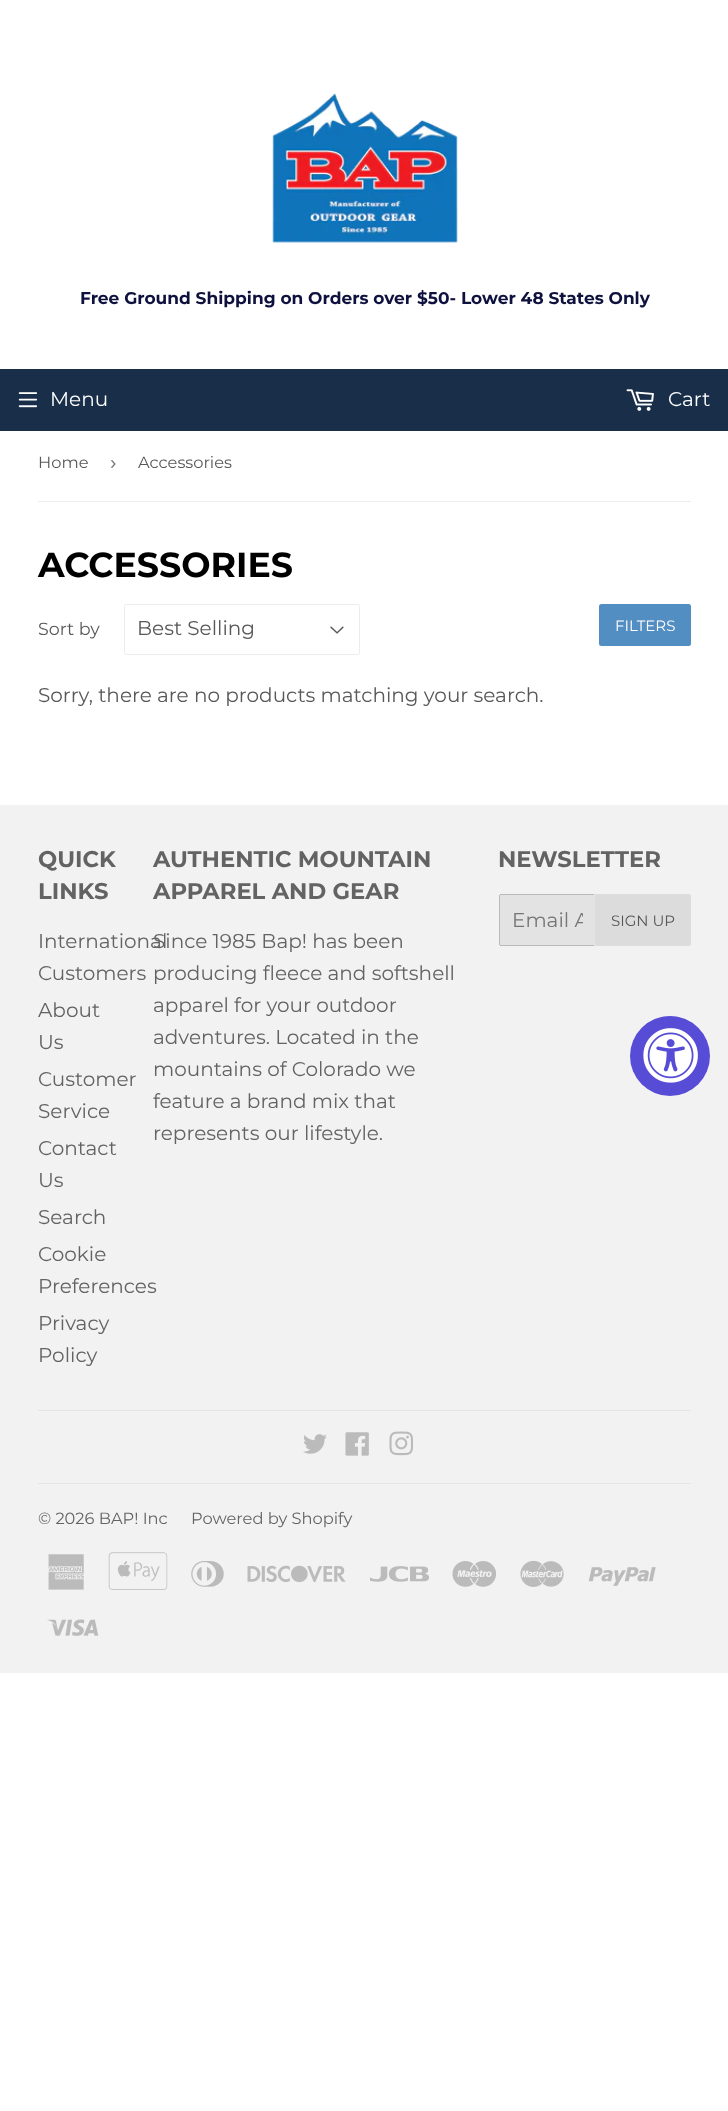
<svg xmlns="http://www.w3.org/2000/svg" width="728" height="2111">
	<defs>
		<clipPath id="clip1"><rect x="513" y="908" width="70" height="23" /></clipPath>
	</defs>
	<rect width="100%" height="100%" fill="#FFFFFF" />
	<image x="272" y="93" width="186" height="150" href="assets/img1.png" />
	<text x="80" y="304" font-family="Montserrat" font-size="17" font-weight="700" fill="#0E113D">Free Ground Shipping on Orders over $50- Lower 48 States Only</text>
	<rect x="0" y="369" width="728" height="62" fill="#182E49" />
	<image x="18" y="392" width="20" height="16" href="assets/img2.png" />
	<text x="50" y="406" font-family="Montserrat" font-size="20" fill="#FFFFFF">Menu</text>
	<image x="626" y="389" width="28" height="22" href="assets/img3.png" />
	<text x="668" y="406" font-family="Montserrat" font-size="20" fill="#FFFFFF">Cart</text>
	<rect x="38" y="501" width="653" height="1" fill="#ECECEC" />
	<text x="38" y="468" font-family="Montserrat" font-size="16.25" fill="#585858">Home</text>
	<text x="110" y="469" font-family="Liberation Sans" font-size="19" fill="#767676">›</text>
	<text x="138" y="468" font-family="Montserrat" font-size="16.25" fill="#585858">Accessories</text>
	<text x="38" y="577" font-family="Montserrat" font-size="34.75" font-weight="700" fill="#000000">ACCESSORIES</text>
	<text x="38" y="635" font-family="Montserrat" font-size="17.5" fill="#585858">Sort by</text>
	<image x="330" y="626" width="14" height="8" href="assets/img4.png" />
	<rect x="124.5" y="604.5" width="235" height="50" rx="2" fill="none" stroke="#ECECEC" />
	<text x="137" y="635" font-family="Montserrat" font-size="20" fill="#585858">Best Selling</text>
	<rect x="599" y="604" width="92" height="42" rx="2.5" fill="#528EC1" />
	<text x="615" y="631" font-family="Montserrat" font-size="15" fill="#FFFFFF">FILTERS</text>
	<text x="38" y="702" font-family="Montserrat" font-size="20" fill="#585858">Sorry, there are no products matching your search.</text>
	<rect x="0" y="805" width="728" height="868" fill="#F2F2F2" />
	<g font-family="Montserrat" font-size="22.7" font-weight="700" fill="#636363">
		<text x="38" y="867">QUICK</text>
		<text x="38" y="899">LINKS</text>
	</g>
	<g font-family="Montserrat" font-size="20" fill="#636363">
		<text x="38" y="948">International</text>
		<text x="38" y="980">Customers</text>
		<text x="38" y="1017">About</text>
		<text x="38" y="1049">Us</text>
		<text x="38" y="1086">Customer</text>
		<text x="38" y="1118">Service</text>
		<text x="38" y="1155">Contact</text>
		<text x="38" y="1187">Us</text>
		<text x="38" y="1224">Search</text>
		<text x="38" y="1261">Cookie</text>
		<text x="38" y="1293">Preferences</text>
		<text x="38" y="1330">Privacy</text>
		<text x="38" y="1362">Policy</text>
	</g>
	<g font-family="Montserrat" font-size="22.7" font-weight="700" fill="#636363">
		<text x="153" y="867">AUTHENTIC MOUNTAIN</text>
		<text x="153" y="899">APPAREL AND GEAR</text>
	</g>
	<g font-family="Montserrat" font-size="20" fill="#636363">
		<text x="153" y="948">Since 1985 Bap! has been</text>
		<text x="153" y="980">producing fleece and softshell</text>
		<text x="153" y="1012">apparel for your outdoor</text>
		<text x="153" y="1044">adventures. Located in the</text>
		<text x="153" y="1076">mountains of Colorado we</text>
		<text x="153" y="1108">feature a brand mix that</text>
		<text x="153" y="1140">represents our lifestyle.</text>
	</g>
	<text x="498" y="867" font-family="Montserrat" font-size="22.7" font-weight="700" fill="#636363">NEWSLETTER</text>
	<rect x="499" y="894" width="96" height="52" rx="2.5" fill="#E3E3E3" />
	<rect x="500" y="894" width="94" height="1" fill="#B9B9B9" />
	<rect x="500" y="945" width="94" height="1" fill="#B9B9B9" />
	<rect x="499" y="895" width="1" height="50" fill="#B9B9B9" />
	<g clip-path="url(#clip1)">
		<text x="512" y="927" font-family="Montserrat" font-size="20" fill="#767676">Email A</text>
	</g>
	<path d="M595 894H688.5C690 894 691 895 691 896.5V943.5C691 945 690 946 688.5 946H595Z" fill="#DCDCDC" />
	<text x="611" y="926" font-family="Montserrat" font-size="15" fill="#585858">SIGN UP</text>
	<rect x="38" y="1410" width="653" height="1" fill="#E5E5E5" />
	<image x="303" y="1434" width="24" height="20" href="assets/img5.png" />
	<image x="345" y="1432" width="24" height="24" href="assets/img6.png" />
	<image x="389" y="1431" width="24" height="25" href="assets/img7.png" />
	<rect x="38" y="1483" width="653" height="1" fill="#E5E5E5" />
	<g font-family="Montserrat" font-size="16.25" fill="#636363">
		<text x="38" y="1524">© 2026 BAP! Inc</text>
		<text x="191" y="1524">Powered by Shopify</text>
	</g>
	<image x="48" y="1554" width="36" height="36" href="assets/img8.png" />
	<image x="108" y="1552" width="60" height="38" href="assets/img9.png" />
	<image x="191" y="1561" width="33" height="26" href="assets/img10.png" />
	<image x="247" y="1565" width="99" height="18" href="assets/img11.png" />
	<image x="370" y="1566" width="59" height="16" href="assets/img12.png" />
	<image x="452" y="1561" width="44" height="26" href="assets/img13.png" />
	<image x="520" y="1560" width="44" height="27" href="assets/img14.png" />
	<image x="588" y="1567" width="68" height="19" href="assets/img15.png" />
	<image x="47" y="1619" width="52" height="17" href="assets/img16.png" />
	<circle cx="670" cy="1056" r="40" fill="#574CD5" />
	<image x="643" y="1028" width="55" height="55" href="assets/img17.png" />
</svg>
